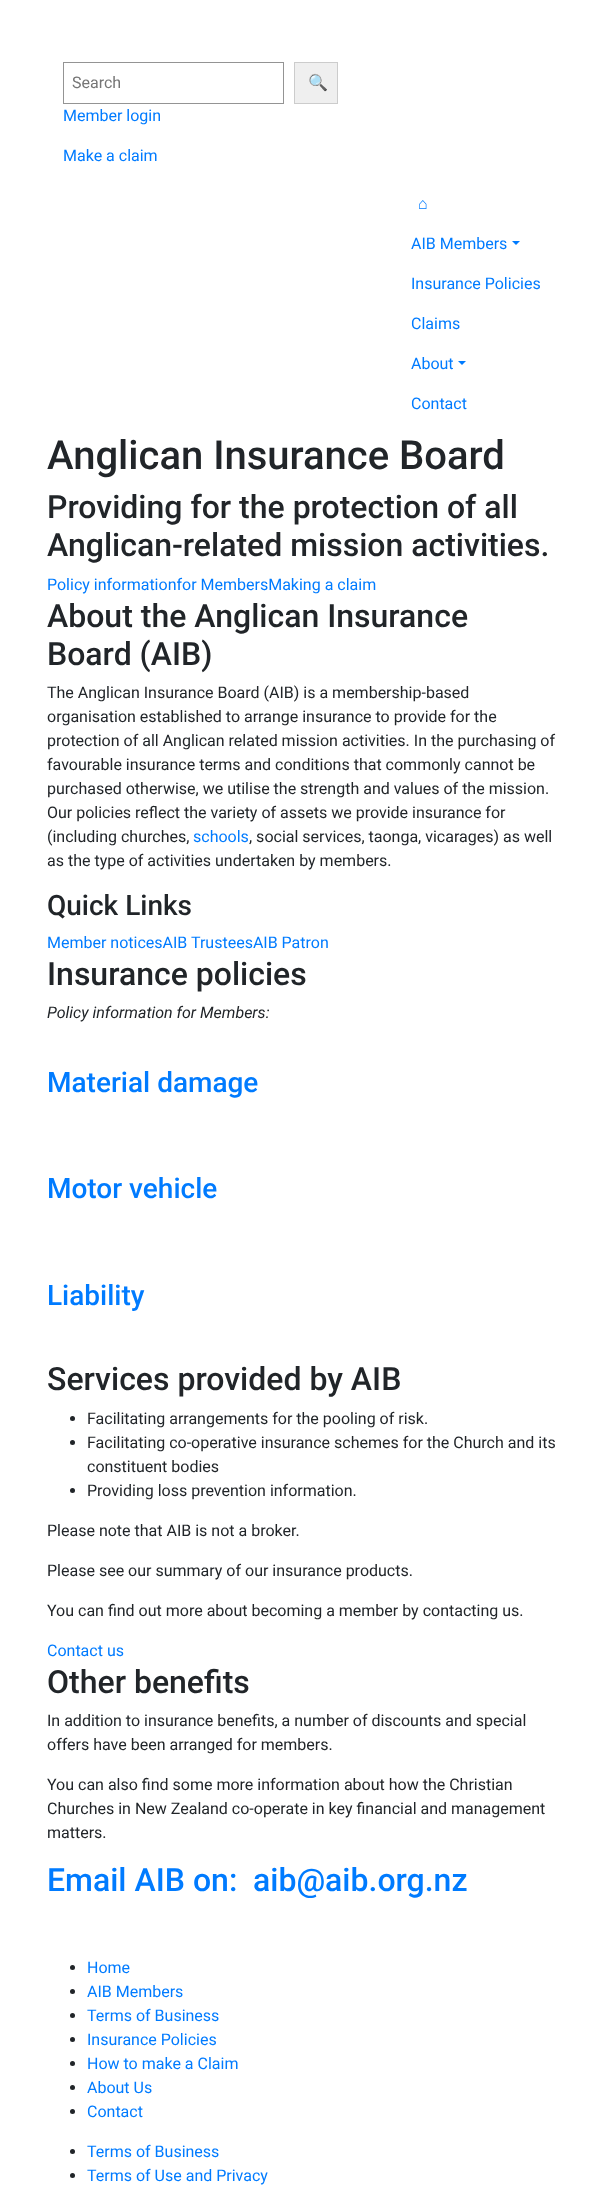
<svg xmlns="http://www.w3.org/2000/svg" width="604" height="2191">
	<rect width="100%" height="100%" fill="#FFFFFF" />
	<rect x="63.5" y="62.5" width="220" height="41" fill="none" stroke="#949494" />
	<text x="72" y="88" font-family="Roboto" font-size="16" fill="#757575">Search</text>
	<rect x="294.5" y="62.5" width="43" height="41" fill="#EFEFEF" stroke="#CCCCCC" />
	<text x="308" y="88" font-family="Noto Color Emoji" font-size="16" fill="#000000">🔍</text>
	<g font-family="Roboto" font-size="16" fill="#007BFF">
		<text x="63" y="121">Member login</text>
		<text x="63" y="161">Make a claim</text>
	</g>
	<text x="418" y="209" font-family="Liberation Serif" font-size="16" fill="#007BFF">⌂</text>
	<text x="411" y="249" font-family="Roboto" font-size="16" fill="#007BFF">AIB Members</text>
	<path d="M512 241H520L516 245Z" fill="#007BFF" />
	<g font-family="Roboto" font-size="16" fill="#007BFF">
		<text x="411" y="289">Insurance Policies</text>
		<text x="411" y="329">Claims</text>
		<text x="411" y="369">About</text>
	</g>
	<path d="M458 361H466L462 365Z" fill="#007BFF" />
	<text x="411" y="409" font-family="Roboto" font-size="16" fill="#007BFF">Contact</text>
	<text x="47" y="469" font-family="Roboto" font-size="40" font-weight="500" fill="#212529">Anglican Insurance Board</text>
	<g font-family="Roboto" font-size="32" font-weight="500" fill="#212529">
		<text x="47" y="518">Providing for the protection of all</text>
		<text x="47" y="556">Anglican-related mission activities.</text>
	</g>
	<text x="47" y="590" font-family="Roboto" font-size="16" fill="#007BFF">Policy informationfor MembersMaking a claim</text>
	<g font-family="Roboto" font-size="32" font-weight="500" fill="#212529">
		<text x="47" y="627">About the Anglican Insurance</text>
		<text x="47" y="665">Board (AIB)</text>
	</g>
	<g font-family="Roboto" font-size="16" fill="#212529">
		<text x="47" y="698">The Anglican Insurance Board (AIB) is a membership-based</text>
		<text x="47" y="722">organisation established to arrange insurance to provide for the</text>
		<text x="47" y="746">protection of all Anglican related mission activities. In the purchasing of</text>
		<text x="47" y="770">favourable insurance terms and conditions that commonly cannot be</text>
		<text x="47" y="794">purchased otherwise, we utilise the strength and values of the mission.</text>
		<text x="47" y="818">Our policies reflect the variety of assets we provide insurance for</text>
		<text x="47" y="842">(including churches,</text>
	</g>
	<text x="193" y="842" font-family="Roboto" font-size="16" fill="#007BFF">schools</text>
	<g font-family="Roboto" font-size="16" fill="#212529">
		<text x="249" y="842">, social services, taonga, vicarages) as well</text>
		<text x="47" y="866">as the type of activities undertaken by members.</text>
	</g>
	<text x="47" y="915" font-family="Roboto" font-size="28" font-weight="500" fill="#212529">Quick Links</text>
	<text x="47" y="948" font-family="Roboto" font-size="16" fill="#007BFF">Member noticesAIB TrusteesAIB Patron</text>
	<text x="47" y="985" font-family="Roboto" font-size="32" font-weight="500" fill="#212529">Insurance policies</text>
	<text x="47" y="1018" font-family="Roboto" font-size="16" font-style="italic" fill="#212529">Policy information for Members:</text>
	<g font-family="Roboto" font-size="28" font-weight="500" fill="#007BFF">
		<text x="47" y="1092">Material damage</text>
		<text x="47" y="1198">Motor vehicle</text>
		<text x="47" y="1305">Liability</text>
	</g>
	<text x="47" y="1390" font-family="Roboto" font-size="32" font-weight="500" fill="#212529">Services provided by AIB</text>
	<circle cx="72.5" cy="1418.5" r="2.5" fill="#212529" />
	<text x="87" y="1424" font-family="Roboto" font-size="16" fill="#212529">Facilitating arrangements for the pooling of risk.</text>
	<circle cx="72.5" cy="1442.5" r="2.5" fill="#212529" />
	<g font-family="Roboto" font-size="16" fill="#212529">
		<text x="87" y="1448">Facilitating co-operative insurance schemes for the Church and its</text>
		<text x="87" y="1472">constituent bodies</text>
	</g>
	<circle cx="72.5" cy="1490.5" r="2.5" fill="#212529" />
	<g font-family="Roboto" font-size="16" fill="#212529">
		<text x="87" y="1496">Providing loss prevention information.</text>
		<text x="47" y="1536">Please note that AIB is not a broker.</text>
		<text x="47" y="1576">Please see our summary of our insurance products.</text>
		<text x="47" y="1616">You can find out more about becoming a member by contacting us.</text>
	</g>
	<text x="47" y="1656" font-family="Roboto" font-size="16" fill="#007BFF">Contact us</text>
	<text x="47" y="1693" font-family="Roboto" font-size="32" font-weight="500" fill="#212529">Other benefits</text>
	<g font-family="Roboto" font-size="16" fill="#212529">
		<text x="47" y="1726">In addition to insurance benefits, a number of discounts and special</text>
		<text x="47" y="1750">offers have been arranged for members.</text>
		<text x="47" y="1790">You can also find some more information about how the Christian</text>
		<text x="47" y="1814">Churches in New Zealand co-operate in key financial and management</text>
		<text x="47" y="1838">matters.</text>
	</g>
	<g font-family="Roboto" font-size="32" font-weight="500" fill="#007BFF">
		<text x="47" y="1891">Email AIB on:</text>
		<text x="253" y="1891">aib@aib.org.nz</text>
	</g>
	<circle cx="72.5" cy="1967.5" r="2.5" fill="#212529" />
	<text x="87" y="1973" font-family="Roboto" font-size="16" fill="#007BFF">Home</text>
	<circle cx="72.5" cy="1991.5" r="2.5" fill="#212529" />
	<text x="87" y="1997" font-family="Roboto" font-size="16" fill="#007BFF">AIB Members</text>
	<circle cx="72.5" cy="2015.5" r="2.5" fill="#212529" />
	<text x="87" y="2021" font-family="Roboto" font-size="16" fill="#007BFF">Terms of Business</text>
	<circle cx="72.5" cy="2039.5" r="2.5" fill="#212529" />
	<text x="87" y="2045" font-family="Roboto" font-size="16" fill="#007BFF">Insurance Policies</text>
	<circle cx="72.5" cy="2063.5" r="2.5" fill="#212529" />
	<text x="87" y="2069" font-family="Roboto" font-size="16" fill="#007BFF">How to make a Claim</text>
	<circle cx="72.5" cy="2087.5" r="2.5" fill="#212529" />
	<text x="87" y="2093" font-family="Roboto" font-size="16" fill="#007BFF">About Us</text>
	<circle cx="72.5" cy="2111.5" r="2.5" fill="#212529" />
	<text x="87" y="2117" font-family="Roboto" font-size="16" fill="#007BFF">Contact</text>
	<circle cx="72.5" cy="2151.5" r="2.5" fill="#212529" />
	<text x="87" y="2157" font-family="Roboto" font-size="16" fill="#007BFF">Terms of Business</text>
	<circle cx="72.5" cy="2175.5" r="2.5" fill="#212529" />
	<text x="87" y="2181" font-family="Roboto" font-size="16" fill="#007BFF">Terms of Use and Privacy</text>
</svg>
